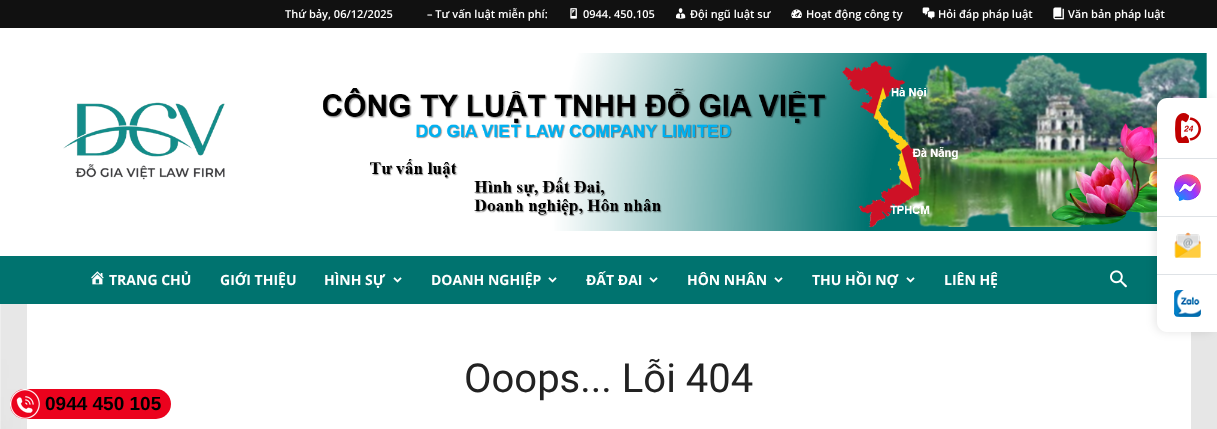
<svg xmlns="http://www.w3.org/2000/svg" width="1217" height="429">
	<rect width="100%" height="100%" fill="#FFFFFF" />
	<rect x="0" y="0" width="1217" height="28" fill="#111111" />
	<g font-family="Open Sans" font-size="11" font-weight="600" fill="#FFFFFF">
		<text x="285" y="18">Thứ bảy, 06/12/2025</text>
		<text x="427" y="18">– Tư vấn luật miễn phí:</text>
	</g>
	<image x="570" y="8" width="7" height="11" href="assets/img1.png" />
	<text x="583" y="18" font-family="Open Sans" font-size="11" font-weight="600" fill="#FFFFFF">0944. 450.105</text>
	<image x="676" y="8" width="10" height="11" href="assets/img2.png" />
	<text x="690" y="18" font-family="Open Sans" font-size="11" font-weight="600" fill="#FFFFFF">Đội ngũ luật sư</text>
	<image x="791" y="9" width="11" height="9" href="assets/img3.png" />
	<text x="806" y="18" font-family="Open Sans" font-size="11" font-weight="600" fill="#FFFFFF">Hoạt động công ty</text>
	<image x="922" y="7" width="13" height="13" href="assets/img4.png" />
	<text x="938" y="18" font-family="Open Sans" font-size="11" font-weight="600" fill="#FFFFFF">Hỏi đáp pháp luật</text>
	<image x="1053" y="7" width="11" height="13" href="assets/img5.png" />
	<text x="1068" y="18" font-family="Open Sans" font-size="11" font-weight="600" fill="#FFFFFF">Văn bản pháp luật</text>
	<image x="63" y="53" width="1144" height="178" href="assets/img6.png" />
	<rect x="0" y="256" width="1157" height="48" fill="#00736F" />
	<image x="91" y="271" width="13" height="14" href="assets/img7.png" />
	<g font-family="Open Sans" font-size="14" font-weight="700" fill="#FFFFFF">
		<text x="109" y="285">TRANG CHỦ</text>
		<text x="220" y="285">GIỚI THIỆU</text>
		<text x="324" y="285">HÌNH SỰ</text>
	</g>
	<image x="393" y="277" width="9" height="6" href="assets/img8.png" />
	<text x="431" y="285" font-family="Open Sans" font-size="14" font-weight="700" fill="#FFFFFF">DOANH NGHIỆP</text>
	<image x="548" y="277" width="9" height="6" href="assets/img8.png" />
	<text x="586" y="285" font-family="Open Sans" font-size="14" font-weight="700" fill="#FFFFFF">ĐẤT ĐAI</text>
	<image x="649" y="277" width="9" height="6" href="assets/img8.png" />
	<text x="687" y="285" font-family="Open Sans" font-size="14" font-weight="700" fill="#FFFFFF">HÔN NHÂN</text>
	<image x="774" y="277" width="9" height="6" href="assets/img8.png" />
	<text x="812" y="285" font-family="Open Sans" font-size="14" font-weight="700" fill="#FFFFFF">THU HỒI NỢ</text>
	<image x="906" y="277" width="9" height="6" href="assets/img8.png" />
	<text x="944" y="285" font-family="Open Sans" font-size="14" font-weight="700" fill="#FFFFFF">LIÊN HỆ</text>
	<image x="1110" y="270" width="17" height="18" href="assets/img9.png" />
	<image x="0" y="304" width="1217" height="125" href="assets/img14.png" />
	<rect x="27" y="304" width="1164" height="125" fill="#FFFFFF" />
	<text x="464" y="392" font-family="Roboto" font-size="40" fill="#222222">Ooops... Lỗi 404</text>
	<rect x="1155" y="98" width="60" height="234" rx="10" fill="#000000" fill-opacity="0.1" filter="blur(5px)" />
	<path d="M1167 98H1217V332H1167C1161.5 332 1157 327.5 1157 322V108C1157 102.5 1161.5 98 1167 98Z" fill="#FFFFFF" />
	<rect x="1157" y="158" width="60" height="1" fill="#DEE2E6" />
	<image x="1175" y="113" width="26" height="30" href="assets/img10.png" />
	<rect x="1157" y="216" width="60" height="1" fill="#DEE2E6" />
	<image x="1174" y="174" width="27" height="27" href="assets/img11.png" />
	<rect x="1157" y="274" width="60" height="1" fill="#DEE2E6" />
	<image x="1174" y="232" width="27" height="26" href="assets/img12.png" />
	<image x="1174" y="290" width="27" height="27" href="assets/img13.png" />
	<rect x="10" y="389" width="161" height="30" rx="15" fill="#EB021D" />
	<image x="10" y="389" width="30" height="30" href="assets/img15.png" />
	<text x="45" y="410" font-family="Liberation Sans" font-size="19" font-weight="700" fill="#000000">0944 450 105</text>
</svg>
